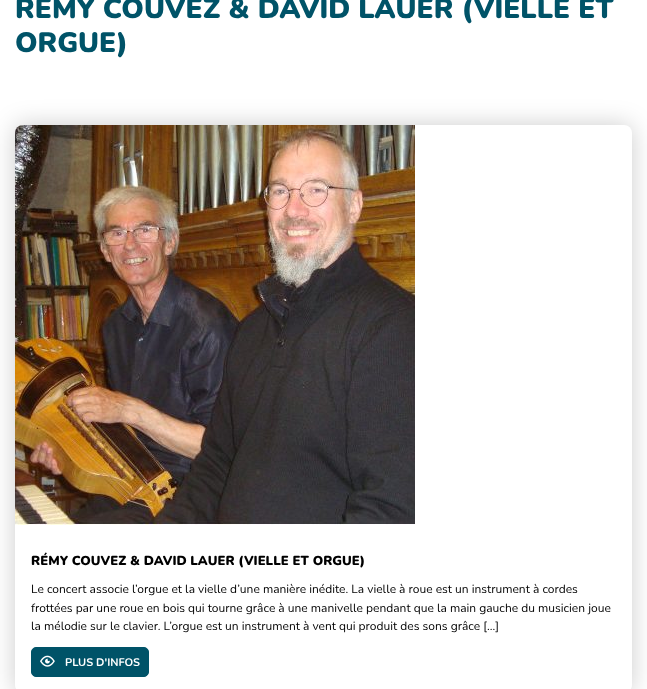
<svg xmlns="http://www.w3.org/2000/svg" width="647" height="689">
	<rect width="100%" height="100%" fill="#FFFFFF" />
	<g font-family="Nunito" font-size="28" font-weight="900" fill="#005368">
		<text x="15" y="18">RÉMY COUVEZ &amp; DAVID LAUER (VIELLE ET</text>
		<text x="15" y="52">ORGUE)</text>
	</g>
	<rect x="15" y="125" width="617" height="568" rx="8" fill="#000000" fill-opacity="0.2" filter="blur(12.5px)" />
	<rect x="15" y="125" width="617" height="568" rx="8" fill="#FFFFFF" />
	<image x="15" y="125" width="400" height="400" href="assets/img1.png" />
	<text x="31" y="565" font-family="Nunito" font-size="13" font-weight="900" fill="#000000">RÉMY COUVEZ &amp; DAVID LAUER (VIELLE ET ORGUE)</text>
	<g font-family="Nunito" font-size="12" fill="#000000">
		<text x="31" y="593">Le concert associe l’orgue et la vielle d’une manière inédite. La vielle à roue est un instrument à cordes</text>
		<text x="31" y="612">frottées par une roue en bois qui tourne grâce à une manivelle pendant que la main gauche du musicien joue</text>
		<text x="31" y="630">la mélodie sur le clavier. L’orgue est un instrument à vent qui produit des sons grâce […]</text>
	</g>
	<rect x="31.5" y="647.5" width="117" height="29" rx="4.5" fill="#005368" stroke="#005368" />
	<image x="40" y="655" width="15" height="12" href="assets/img2.png" />
	<text x="65" y="666" font-family="Nunito" font-size="11" font-weight="700" fill="#FFFFFF">PLUS D'INFOS</text>
</svg>
